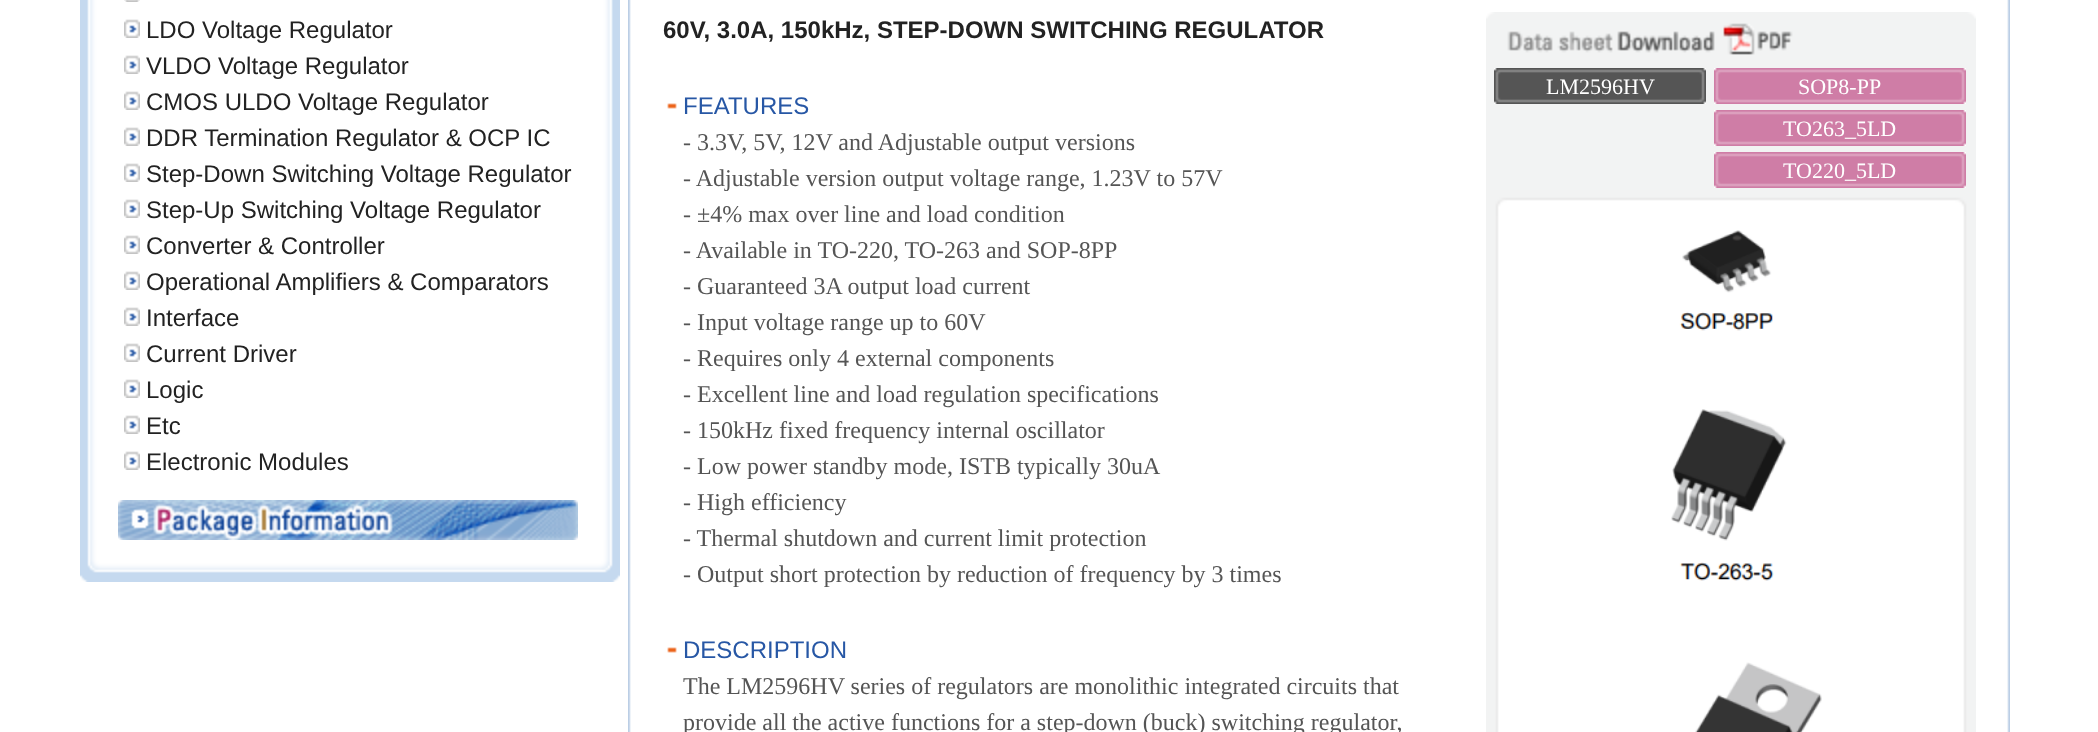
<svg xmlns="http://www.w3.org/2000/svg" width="2098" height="732">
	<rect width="100%" height="100%" fill="#FFFFFF" />
	<image x="80" y="0" width="540" height="540" href="assets/img1.png" />
	<image x="124" y="0" width="16" height="2" href="assets/img2.png" />
	<image x="124" y="19" width="16" height="19" href="assets/img3.png" />
	<text x="146" y="38" font-family="Liberation Sans" font-size="24" fill="#222222">LDO Voltage Regulator</text>
	<image x="124" y="55" width="16" height="19" href="assets/img3.png" />
	<text x="146" y="74" font-family="Liberation Sans" font-size="24" fill="#222222">VLDO Voltage Regulator</text>
	<image x="124" y="91" width="16" height="19" href="assets/img3.png" />
	<text x="146" y="110" font-family="Liberation Sans" font-size="24" fill="#222222">CMOS ULDO Voltage Regulator</text>
	<image x="124" y="127" width="16" height="19" href="assets/img3.png" />
	<text x="146" y="146" font-family="Liberation Sans" font-size="24" fill="#222222">DDR Termination Regulator &amp; OCP IC</text>
	<image x="124" y="163" width="16" height="19" href="assets/img3.png" />
	<text x="146" y="182" font-family="Liberation Sans" font-size="24" fill="#222222">Step-Down Switching Voltage Regulator</text>
	<image x="124" y="199" width="16" height="19" href="assets/img3.png" />
	<text x="146" y="218" font-family="Liberation Sans" font-size="24" fill="#222222">Step-Up Switching Voltage Regulator</text>
	<image x="124" y="235" width="16" height="19" href="assets/img3.png" />
	<text x="146" y="254" font-family="Liberation Sans" font-size="24" fill="#222222">Converter &amp; Controller</text>
	<image x="124" y="271" width="16" height="19" href="assets/img3.png" />
	<text x="146" y="290" font-family="Liberation Sans" font-size="24" fill="#222222">Operational Amplifiers &amp; Comparators</text>
	<image x="124" y="307" width="16" height="19" href="assets/img3.png" />
	<text x="146" y="326" font-family="Liberation Sans" font-size="24" fill="#222222">Interface</text>
	<image x="124" y="343" width="16" height="19" href="assets/img3.png" />
	<text x="146" y="362" font-family="Liberation Sans" font-size="24" fill="#222222">Current Driver</text>
	<image x="124" y="379" width="16" height="19" href="assets/img3.png" />
	<text x="146" y="398" font-family="Liberation Sans" font-size="24" fill="#222222">Logic</text>
	<image x="124" y="415" width="16" height="19" href="assets/img3.png" />
	<text x="146" y="434" font-family="Liberation Sans" font-size="24" fill="#222222">Etc</text>
	<image x="124" y="451" width="16" height="19" href="assets/img3.png" />
	<text x="146" y="470" font-family="Liberation Sans" font-size="24" fill="#222222">Electronic Modules</text>
	<image x="118" y="500" width="460" height="40" href="assets/img4.png" />
	<image x="80" y="540" width="540" height="42" href="assets/img5.png" />
	<image x="628" y="0" width="1382" height="732" href="assets/img6.png" />
	<text x="663" y="38" font-family="Liberation Sans" font-size="24" font-weight="700" fill="#222222">60V, 3.0A, 150kHz, STEP-DOWN SWITCHING REGULATOR</text>
	<image x="667" y="103" width="10" height="6" href="assets/img7.png" />
	<text x="683" y="114" font-family="Liberation Sans" font-size="24" fill="#2757A5">FEATURES</text>
	<g font-family="Liberation Serif" font-size="24" fill="#555555">
		<text x="683" y="150">- 3.3V, 5V, 12V and Adjustable output versions</text>
		<text x="683" y="186">- Adjustable version output voltage range, 1.23V to 57V</text>
		<text x="683" y="222">- ±4% max over line and load condition</text>
		<text x="683" y="258">- Available in TO-220, TO-263 and SOP-8PP</text>
		<text x="683" y="294">- Guaranteed 3A output load current</text>
		<text x="683" y="330">- Input voltage range up to 60V</text>
		<text x="683" y="366">- Requires only 4 external components</text>
		<text x="683" y="402">- Excellent line and load regulation specifications</text>
		<text x="683" y="438">- 150kHz fixed frequency internal oscillator</text>
		<text x="683" y="474">- Low power standby mode, ISTB typically 30uA</text>
		<text x="683" y="510">- High efficiency</text>
		<text x="683" y="546">- Thermal shutdown and current limit protection</text>
		<text x="683" y="582">- Output short protection by reduction of frequency by 3 times</text>
	</g>
	<image x="667" y="647" width="10" height="6" href="assets/img7.png" />
	<text x="683" y="658" font-family="Liberation Sans" font-size="24" fill="#2757A5">DESCRIPTION</text>
	<g font-family="Liberation Serif" font-size="24" fill="#555555">
		<text x="683" y="694">The LM2596HV series of regulators are monolithic integrated circuits that</text>
		<text x="683" y="730">provide all the active functions for a step-down (buck) switching regulator,</text>
	</g>
	<image x="1486" y="12" width="490" height="50" href="assets/img8.png" />
	<rect x="1486" y="62" width="490" height="126" fill="#F2F3F3" />
	<image x="1494" y="68" width="16" height="36" href="assets/img9.png" />
	<image x="1510" y="68" width="180" height="36" href="assets/img10.png" />
	<text x="1546" y="94" font-family="Liberation Serif" font-size="22" fill="#FFFFFF">LM2596HV</text>
	<image x="1690" y="68" width="16" height="36" href="assets/img11.png" />
	<image x="1714" y="68" width="16" height="36" href="assets/img12.png" />
	<image x="1730" y="68" width="220" height="36" href="assets/img13.png" />
	<text x="1798" y="94" font-family="Liberation Serif" font-size="22" fill="#FFFFFF">SOP8-PP</text>
	<image x="1950" y="68" width="16" height="36" href="assets/img14.png" />
	<image x="1714" y="110" width="16" height="36" href="assets/img12.png" />
	<image x="1730" y="110" width="220" height="36" href="assets/img13.png" />
	<text x="1783" y="136" font-family="Liberation Serif" font-size="22" fill="#FFFFFF">TO263_5LD</text>
	<image x="1950" y="110" width="16" height="36" href="assets/img14.png" />
	<image x="1714" y="152" width="16" height="36" href="assets/img12.png" />
	<image x="1730" y="152" width="220" height="36" href="assets/img13.png" />
	<text x="1783" y="178" font-family="Liberation Serif" font-size="22" fill="#FFFFFF">TO220_5LD</text>
	<image x="1950" y="152" width="16" height="36" href="assets/img14.png" />
	<image x="1486" y="188" width="490" height="28" href="assets/img15.png" />
	<image x="1486" y="216" width="490" height="516" href="assets/img16.png" />
	<image x="1671" y="230" width="151" height="502" href="assets/img17.png" />
</svg>
